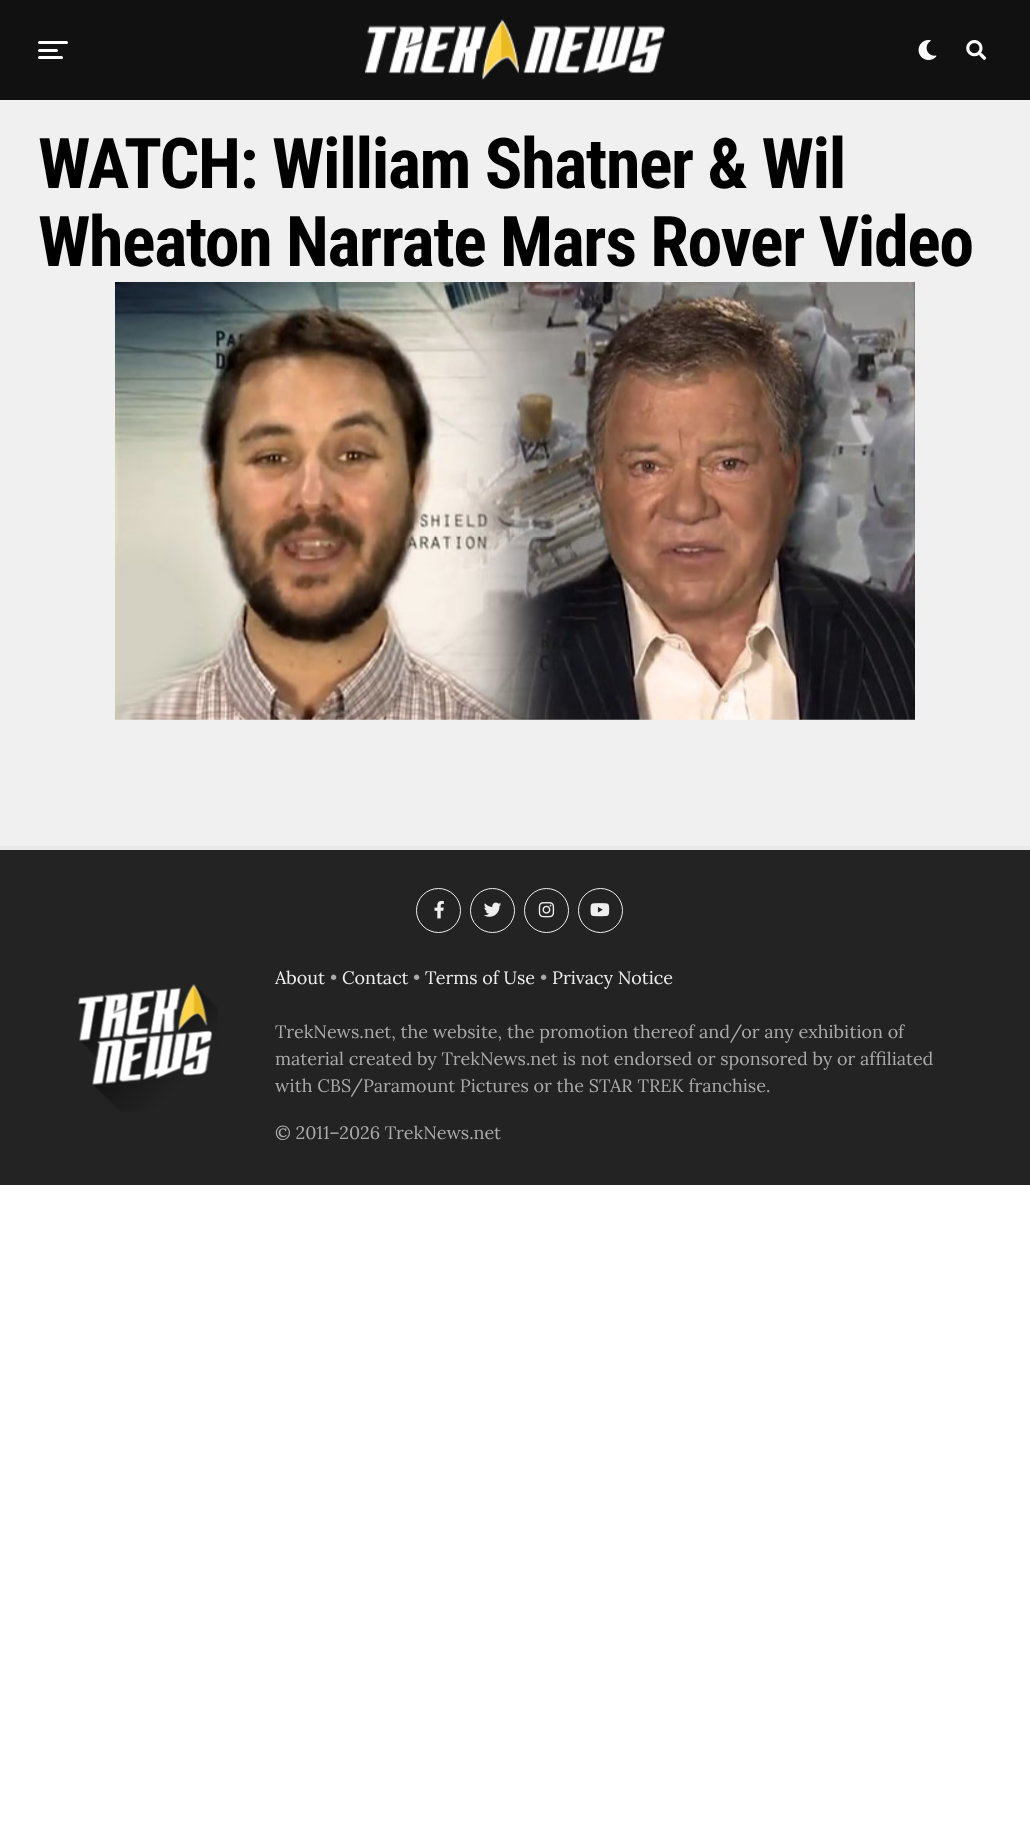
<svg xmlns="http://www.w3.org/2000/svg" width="1030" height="1833">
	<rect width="100%" height="100%" fill="#FFFFFF" />
	<rect x="0" y="0" width="1030" height="100" fill="#111111" />
	<rect x="38" y="41" width="30" height="3" rx="1.5" fill="#FFFFFF" />
	<rect x="38" y="49" width="20" height="3" rx="1.5" fill="#FFFFFF" />
	<rect x="38" y="56" width="25" height="3" rx="1.5" fill="#FFFFFF" />
	<image x="365" y="19" width="300" height="61" href="assets/img1.png" />
	<image x="918" y="40" width="19" height="20" href="assets/img2.png" />
	<image x="966" y="40" width="21" height="20" href="assets/img3.png" />
	<rect x="0" y="100" width="1030" height="746" fill="#F0F0F0" />
	<g font-family="Roboto Condensed" font-size="70" font-weight="700" letter-spacing="-1.4" fill="#000000">
		<text x="38" y="188">WATCH: William Shatner &amp; Wil</text>
		<text x="38" y="266">Wheaton Narrate Mars Rover Video</text>
	</g>
	<image x="115" y="282" width="800" height="438" href="assets/img4.png" />
	<rect x="0" y="850" width="1030" height="335" fill="#232323" />
	<rect x="0" y="846" width="1030" height="4" fill="#E9E9E9" />
	<circle cx="438.5" cy="910.5" r="22" fill="none" stroke="#EEEEEE" />
	<image x="434" y="900" width="10" height="19" href="assets/img5.png" />
	<circle cx="492.5" cy="910.5" r="22" fill="none" stroke="#EEEEEE" />
	<image x="484" y="902" width="18" height="15" href="assets/img6.png" />
	<circle cx="546.5" cy="910.5" r="22" fill="none" stroke="#EEEEEE" />
	<image x="538" y="902" width="17" height="16" href="assets/img7.png" />
	<circle cx="600.5" cy="910.5" r="22" fill="none" stroke="#EEEEEE" />
	<image x="590" y="903" width="20" height="14" href="assets/img8.png" />
	<image x="78" y="983" width="140" height="129" href="assets/img9.png" />
	<text x="275" y="984" font-family="Lora" font-size="18" fill="#EEEEEE">About</text>
	<text x="330" y="984" font-family="Lora" font-size="18" fill="#AAAAAA">•</text>
	<text x="342" y="984" font-family="Lora" font-size="18" fill="#EEEEEE">Contact</text>
	<text x="413" y="984" font-family="Lora" font-size="18" fill="#AAAAAA">•</text>
	<text x="425" y="984" font-family="Lora" font-size="18" fill="#EEEEEE">Terms of Use</text>
	<text x="540" y="984" font-family="Lora" font-size="18" fill="#AAAAAA">•</text>
	<text x="552" y="984" font-family="Lora" font-size="18" fill="#EEEEEE">Privacy Notice</text>
	<g font-family="Lora" font-size="18" fill="#AAAAAA">
		<text x="275" y="1038">TrekNews.net, the website, the promotion thereof and/or any exhibition of</text>
		<text x="275" y="1065">material created by TrekNews.net is not endorsed or sponsored by or affiliated</text>
		<text x="275" y="1092">with CBS/Paramount Pictures or the STAR TREK franchise.</text>
		<text x="275" y="1139">© 2011–2026 TrekNews.net</text>
	</g>
</svg>
